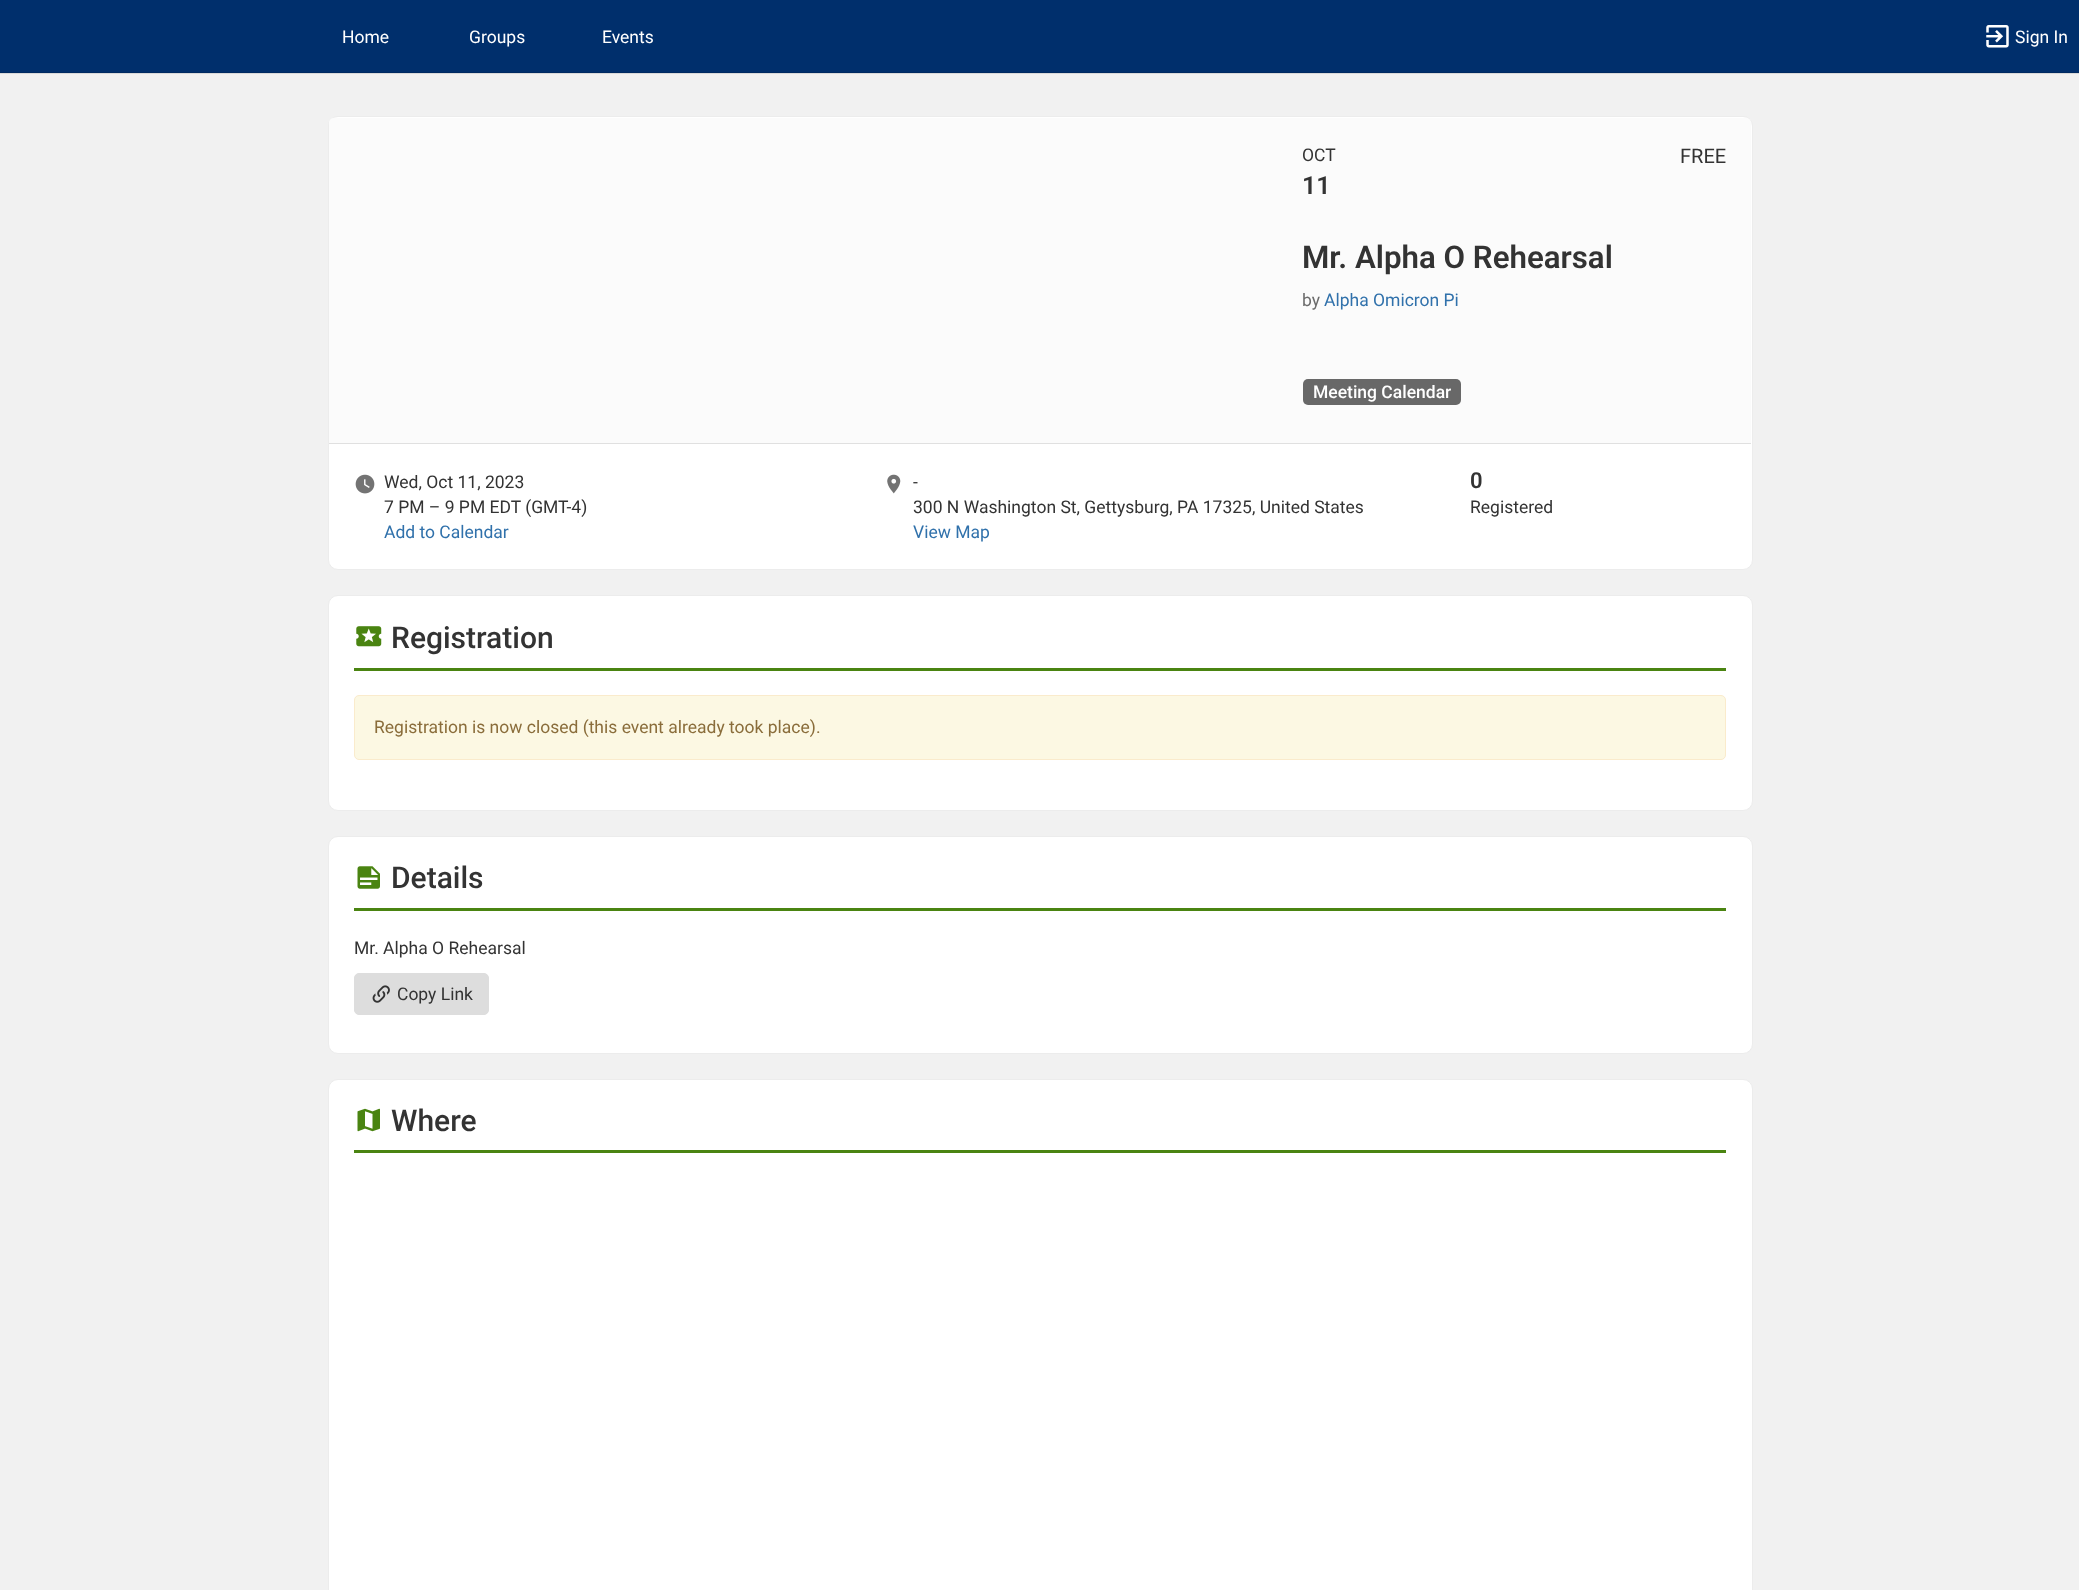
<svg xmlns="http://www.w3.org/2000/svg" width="2079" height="1590">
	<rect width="100%" height="100%" fill="#F1F1F1" />
	<rect x="0" y="73" width="2079" height="1" fill="#D9D9D9" />
	<rect x="0" y="0" width="2079" height="72" fill="#002F6C" />
	<rect x="0" y="72" width="2079" height="1" fill="#002A61" />
	<g font-family="Roboto" font-size="17.5" fill="#FFFFFF">
		<text x="342" y="43">Home</text>
		<text x="469" y="43">Groups</text>
		<text x="602" y="43">Events</text>
	</g>
	<image x="1986" y="25" width="23" height="23" href="assets/img1.png" />
	<text x="2015" y="43" font-family="Roboto" font-size="17.5" fill="#FFFFFF">Sign In</text>
	<rect x="328.5" y="116.5" width="1424" height="453" rx="9.5" fill="#FFFFFF" stroke="#ECECEC" />
	<path d="M334 118H1746C1749 118 1751 120 1751 123V443H329V123C329 120 331 118 334 118Z" fill="#FBFBFB" />
	<text x="1302" y="161" font-family="Roboto" font-size="17.5" fill="#333333">OCT</text>
	<text x="1680" y="163" font-family="Roboto" font-size="20" fill="#333333">FREE</text>
	<text x="1302" y="194" font-family="Roboto" font-size="25" font-weight="600" fill="#333333">11</text>
	<text x="1302" y="268" font-family="Roboto" font-size="31.25" font-weight="600" fill="#333333">Mr. Alpha O Rehearsal</text>
	<text x="1302" y="306" font-family="Roboto" font-size="17.5" fill="#6C6C6C">by</text>
	<text x="1324" y="306" font-family="Roboto" font-size="17.5" fill="#3071AB">Alpha Omicron Pi</text>
	<rect x="1303" y="379" width="158" height="26" rx="5" fill="#686868" />
	<text x="1313" y="398" font-family="Roboto" font-size="17.5" font-weight="500" fill="#FFFFFF">Meeting Calendar</text>
	<rect x="329" y="443" width="1422" height="1" fill="#E0E0E0" />
	<image x="355" y="474" width="20" height="20" href="assets/img2.png" />
	<g font-family="Roboto" font-size="17.5" fill="#333333">
		<text x="384" y="488">Wed, Oct 11, 2023</text>
		<text x="384" y="513">7 PM – 9 PM EDT (GMT-4)</text>
	</g>
	<text x="384" y="538" font-family="Roboto" font-size="17.5" fill="#3071AB">Add to Calendar</text>
	<image x="887" y="474" width="14" height="20" href="assets/img3.png" />
	<g font-family="Roboto" font-size="17.5" fill="#333333">
		<text x="913" y="488">-</text>
		<text x="913" y="513">300 N Washington St, Gettysburg, PA 17325, United States</text>
	</g>
	<text x="913" y="538" font-family="Roboto" font-size="17.5" fill="#3071AB">View Map</text>
	<text x="1470" y="488" font-family="Roboto" font-size="22" font-weight="600" fill="#333333">0</text>
	<text x="1470" y="513" font-family="Roboto" font-size="17.5" fill="#333333">Registered</text>
	<rect x="328.5" y="595.5" width="1424" height="215" rx="9.5" fill="#FFFFFF" stroke="#ECECEC" />
	<image x="356" y="626" width="26" height="21" href="assets/img4.png" />
	<text x="391" y="648" font-family="Roboto" font-size="30" font-weight="500" fill="#333333">Registration</text>
	<rect x="354" y="668" width="1372" height="3" fill="#4A8411" />
	<rect x="354.5" y="695.5" width="1371" height="64" rx="4.5" fill="#FCF8E3" stroke="#FAEBCC" />
	<text x="374" y="733" font-family="Roboto" font-size="17.5" fill="#8A6D3B">Registration is now closed (this event already took place).</text>
	<rect x="328.5" y="836.5" width="1424" height="217" rx="9.5" fill="#FFFFFF" stroke="#ECECEC" />
	<image x="357" y="866" width="23" height="23" href="assets/img5.png" />
	<text x="391" y="888" font-family="Roboto" font-size="30" font-weight="500" fill="#333333">Details</text>
	<rect x="354" y="908" width="1372" height="3" fill="#4A8411" />
	<text x="354" y="954" font-family="Roboto" font-size="17.5" fill="#333333">Mr. Alpha O Rehearsal</text>
	<rect x="354.5" y="973.5" width="134" height="41" rx="4.5" fill="#DDDDDD" stroke="#DDDDDD" />
	<image x="372" y="985" width="18" height="18" href="assets/img6.png" />
	<text x="397" y="1000" font-family="Roboto" font-size="17.5" fill="#333333">Copy Link</text>
	<rect x="328.5" y="1079.5" width="1424" height="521" rx="9.5" fill="#FFFFFF" stroke="#ECECEC" />
	<image x="357" y="1108" width="23" height="24" href="assets/img7.png" />
	<text x="391" y="1131" font-family="Roboto" font-size="30" font-weight="500" fill="#333333">Where</text>
	<rect x="354" y="1150" width="1372" height="3" fill="#4A8411" />
</svg>
